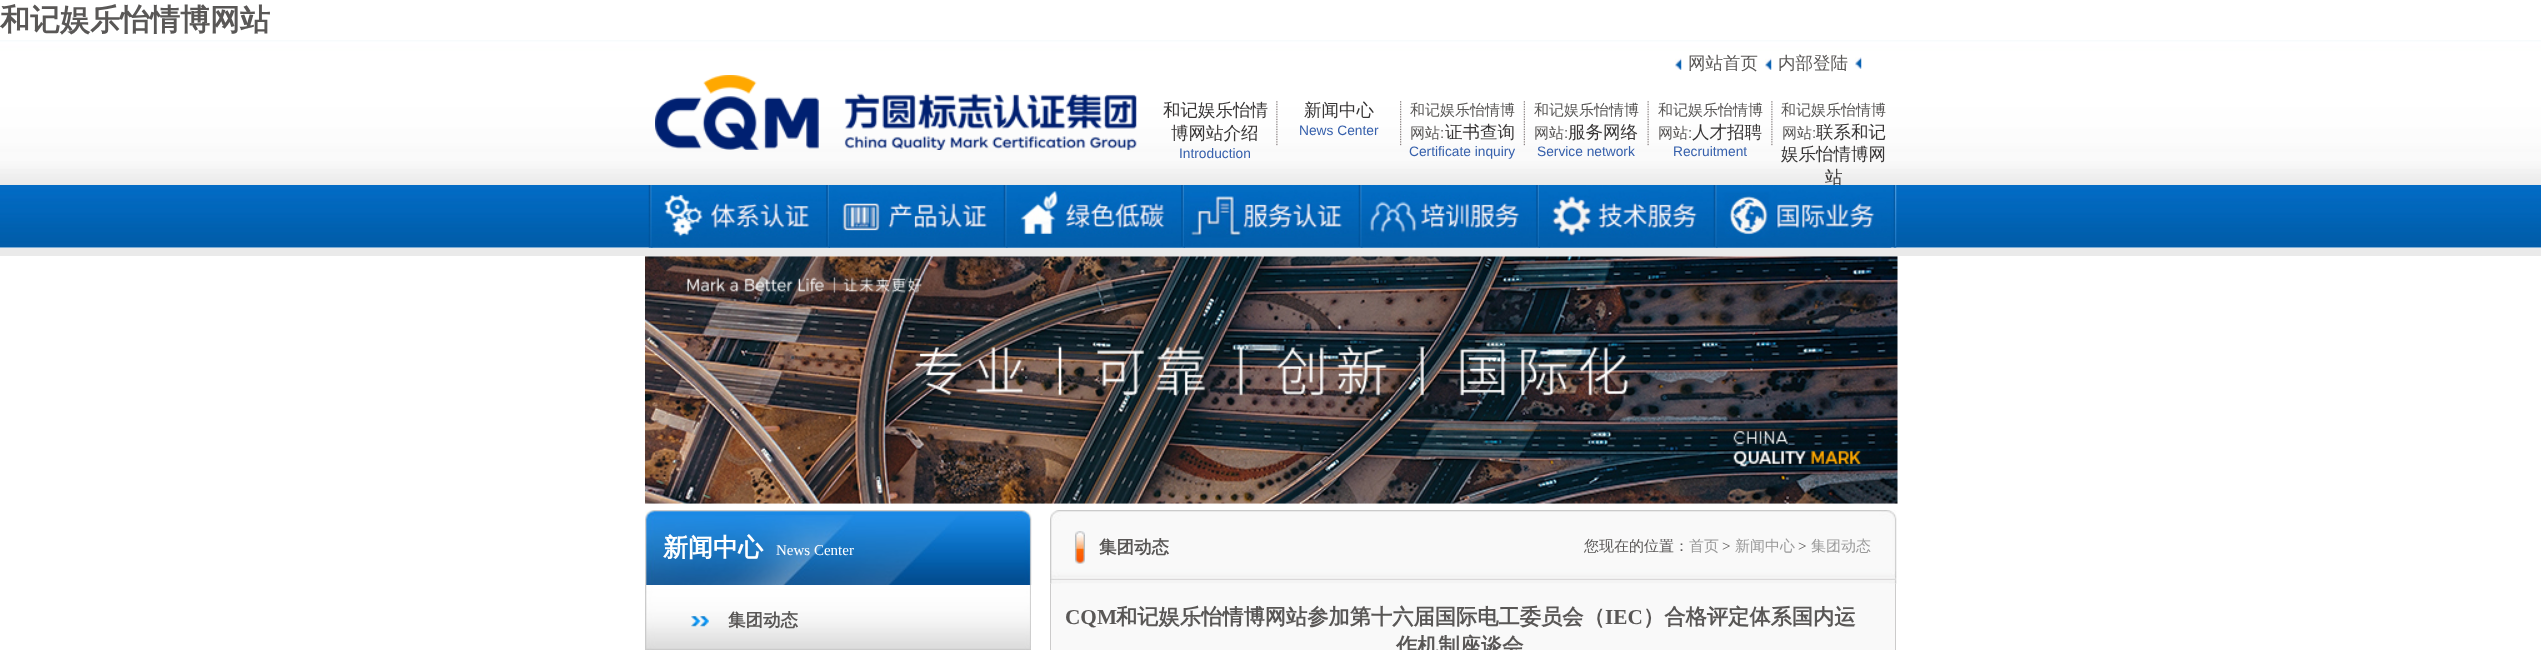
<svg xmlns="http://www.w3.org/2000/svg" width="2541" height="650">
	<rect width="100%" height="100%" fill="#FFFFFF" />
	<text x="0" y="30" font-family="WenQuanYi Zen Hei" font-size="30" font-weight="700" fill="#595756">和记娱乐怡情博网站</text>
	<image x="0" y="40" width="2541" height="145" href="assets/img1.png" />
	<image x="655" y="75" width="482" height="75" href="assets/img2.png" />
	<image x="1675" y="58" width="7" height="12" href="assets/img3.png" />
	<text x="1688" y="69" font-family="WenQuanYi Zen Hei" font-size="17.5" font-weight="500" fill="#595756">网站首页</text>
	<image x="1765" y="58" width="7" height="12" href="assets/img4.png" />
	<text x="1778" y="69" font-family="WenQuanYi Zen Hei" font-size="17.5" font-weight="500" fill="#595756">内部登陆</text>
	<image x="1855" y="57" width="7" height="12" href="assets/img5.png" />
	<image x="1276" y="101" width="2" height="45" href="assets/img6.png" />
	<g font-family="WenQuanYi Zen Hei" font-size="17.5" font-weight="500" fill="#373535">
		<text x="1163" y="116">和记娱乐怡情</text>
		<text x="1171" y="139">博网站介绍</text>
	</g>
	<text x="1179" y="158" font-family="Liberation Sans" font-size="13.75" fill="#3660AC">Introduction</text>
	<image x="1400" y="101" width="2" height="45" href="assets/img7.png" />
	<text x="1304" y="116" font-family="WenQuanYi Zen Hei" font-size="17.5" font-weight="500" fill="#373535">新闻中心</text>
	<text x="1299" y="135" font-family="Liberation Sans" font-size="13.75" fill="#3660AC">News Center</text>
	<image x="1523" y="101" width="2" height="45" href="assets/img8.png" />
	<g font-family="WenQuanYi Zen Hei" font-size="15" font-weight="500" fill="#595756">
		<text x="1410" y="115">和记娱乐怡情博</text>
		<text x="1410" y="138">网站</text>
	</g>
	<text x="1440" y="138" font-family="Liberation Sans" font-size="15" fill="#595756">:</text>
	<text x="1445" y="138" font-family="WenQuanYi Zen Hei" font-size="17.5" font-weight="500" fill="#373535">证书查询</text>
	<text x="1409" y="156" font-family="Liberation Sans" font-size="13.75" fill="#3660AC">Certificate inquiry</text>
	<image x="1647" y="101" width="2" height="45" href="assets/img9.png" />
	<g font-family="WenQuanYi Zen Hei" font-size="15" font-weight="500" fill="#595756">
		<text x="1534" y="115">和记娱乐怡情博</text>
		<text x="1534" y="138">网站</text>
	</g>
	<text x="1564" y="138" font-family="Liberation Sans" font-size="15" fill="#595756">:</text>
	<text x="1568" y="138" font-family="WenQuanYi Zen Hei" font-size="17.5" font-weight="500" fill="#373535">服务网络</text>
	<text x="1537" y="156" font-family="Liberation Sans" font-size="13.75" fill="#3660AC">Service network</text>
	<image x="1771" y="101" width="2" height="45" href="assets/img6.png" />
	<g font-family="WenQuanYi Zen Hei" font-size="15" font-weight="500" fill="#595756">
		<text x="1658" y="115">和记娱乐怡情博</text>
		<text x="1658" y="138">网站</text>
	</g>
	<text x="1688" y="138" font-family="Liberation Sans" font-size="15" fill="#595756">:</text>
	<text x="1692" y="138" font-family="WenQuanYi Zen Hei" font-size="17.5" font-weight="500" fill="#373535">人才招聘</text>
	<text x="1673" y="156" font-family="Liberation Sans" font-size="13.75" fill="#3660AC">Recruitment</text>
	<g font-family="WenQuanYi Zen Hei" font-size="15" font-weight="500" fill="#595756">
		<text x="1781" y="115">和记娱乐怡情博</text>
		<text x="1782" y="138">网站</text>
	</g>
	<text x="1812" y="138" font-family="Liberation Sans" font-size="15" fill="#595756">:</text>
	<g font-family="WenQuanYi Zen Hei" font-size="17.5" font-weight="500" fill="#373535">
		<text x="1816" y="138">联系和记</text>
		<text x="1781" y="160">娱乐怡情博网</text>
		<text x="1825" y="183">站</text>
	</g>
	<image x="0" y="185" width="2541" height="63" href="assets/img10.png" />
	<image x="1893" y="185" width="4" height="63" href="assets/img11.png" />
	<image x="648" y="185" width="5" height="63" href="assets/img12.png" />
	<image x="651" y="185" width="176" height="63" href="assets/img13.png" />
	<image x="826" y="185" width="4" height="63" href="assets/img14.png" />
	<image x="828" y="185" width="176" height="63" href="assets/img15.png" />
	<image x="1003" y="185" width="5" height="63" href="assets/img16.png" />
	<image x="1006" y="185" width="176" height="63" href="assets/img17.png" />
	<image x="1181" y="185" width="4" height="63" href="assets/img18.png" />
	<image x="1183" y="185" width="176" height="63" href="assets/img19.png" />
	<image x="1358" y="185" width="5" height="63" href="assets/img20.png" />
	<image x="1361" y="185" width="176" height="63" href="assets/img21.png" />
	<image x="1536" y="185" width="4" height="63" href="assets/img18.png" />
	<image x="1538" y="185" width="176" height="63" href="assets/img22.png" />
	<image x="1713" y="185" width="5" height="63" href="assets/img23.png" />
	<image x="1716" y="185" width="176" height="63" href="assets/img24.png" />
	<rect x="0" y="248" width="2541" height="8" fill="#EAEAEA" />
	<image x="645" y="256" width="1253" height="248" href="assets/img25.png" />
	<image x="645" y="510" width="387" height="75" href="assets/img26.png" />
	<text x="663" y="556" font-family="WenQuanYi Zen Hei" font-size="25" font-weight="700" fill="#FFFFFF">新闻中心</text>
	<text x="776" y="555" font-family="Liberation Serif" font-size="15" fill="#FFFFFF">News Center</text>
	<image x="645" y="585" width="386" height="65" href="assets/img27.png" />
	<image x="691" y="616" width="18" height="11" href="assets/img28.png" />
	<text x="728" y="626" font-family="WenQuanYi Zen Hei" font-size="17.5" font-weight="700" fill="#595756">集团动态</text>
	<image x="1050" y="510" width="847" height="74" href="assets/img29.png" />
	<image x="1075" y="531" width="10" height="33" href="assets/img30.png" />
	<text x="1099" y="553" font-family="WenQuanYi Zen Hei" font-size="17.5" font-weight="700" fill="#595756">集团动态</text>
	<text x="1584" y="551" font-family="WenQuanYi Zen Hei" font-size="15" font-weight="500" fill="#595756">您现在的位置：</text>
	<text x="1689" y="551" font-family="WenQuanYi Zen Hei" font-size="15" font-weight="500" fill="#999999">首页</text>
	<text x="1722" y="551" font-family="Liberation Serif" font-size="15" fill="#595756">&gt;</text>
	<text x="1735" y="551" font-family="WenQuanYi Zen Hei" font-size="15" font-weight="500" fill="#999999">新闻中心</text>
	<text x="1798" y="551" font-family="Liberation Serif" font-size="15" fill="#595756">&gt;</text>
	<text x="1811" y="551" font-family="WenQuanYi Zen Hei" font-size="15" font-weight="500" fill="#999999">集团动态</text>
	<rect x="1051" y="584" width="844" height="66" fill="#F9F9F9" />
	<rect x="1895" y="584" width="1" height="66" fill="#CCCBCB" />
	<rect x="1050" y="584" width="1" height="66" fill="#CCCBCB" />
	<text x="1065" y="624" font-family="Liberation Serif" font-size="21.25" font-weight="700" fill="#595756">CQM</text>
	<text x="1116" y="624" font-family="WenQuanYi Zen Hei" font-size="21.25" font-weight="700" fill="#595756">和记娱乐怡情博网站参加第十六届国际电工委员会（</text>
	<text x="1605" y="624" font-family="Liberation Serif" font-size="21.25" font-weight="700" fill="#595756">IEC</text>
	<g font-family="WenQuanYi Zen Hei" font-size="21.25" font-weight="700" fill="#595756">
		<text x="1643" y="624">）合格评定体系国内运</text>
		<text x="1396" y="653">作机制座谈会</text>
	</g>
</svg>
